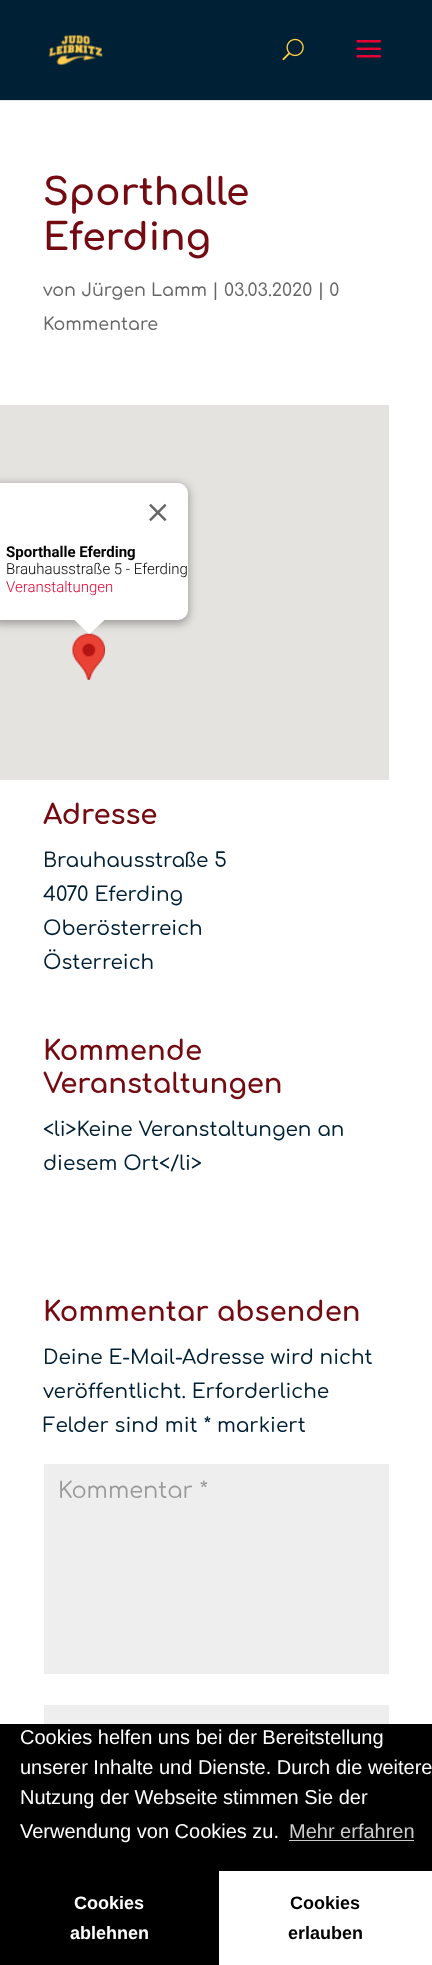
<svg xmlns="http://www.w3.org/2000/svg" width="432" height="1965">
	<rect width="100%" height="100%" fill="#FFFFFF" />
	<path d="M0 100V101H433V1H432V100Z" fill="#E6E6E6" />
	<rect x="0" y="0" width="432" height="100" fill="#002035" />
	<image x="48" y="35" width="55" height="31" href="assets/img1.png" />
	<image x="282" y="38" width="22" height="23" href="assets/img2.png" />
	<image x="356" y="40" width="26" height="18" href="assets/img3.png" />
	<g font-family="Comfortaa" font-size="37.5" font-weight="700" fill="#740B12">
		<text x="43" y="205">Sporthalle</text>
		<text x="43" y="250">Eferding</text>
	</g>
	<g font-family="Comfortaa" font-size="17.5" font-weight="500" fill="#666666">
		<text x="43" y="296">von Jürgen Lamm | 03.03.2020 | 0</text>
		<text x="43" y="330">Kommentare</text>
	</g>
	<rect x="0" y="405" width="389" height="375" fill="#E5E3DF" />
	<image x="72" y="633" width="33" height="47" href="assets/img5.png" />
	<rect x="-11" y="484" width="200" height="140" rx="11" fill="#000000" fill-opacity="0.3" filter="blur(4.5px)" />
	<rect x="-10" y="483" width="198" height="137" rx="10" fill="#FFFFFF" />
	<image x="149" y="503" width="18" height="19" href="assets/img4.png" />
	<text x="6" y="557" font-family="Roboto" font-size="15" font-weight="700" fill="#000000">Sporthalle Eferding</text>
	<text x="6" y="574" font-family="Roboto" font-size="15" font-weight="300" fill="#000000">Brauhausstraße 5 - Eferding</text>
	<text x="6" y="592" font-family="Roboto" font-size="15" font-weight="300" fill="#E40133">Veranstaltungen</text>
	<path d="M74 619.5H105L89.5 634H89Z" fill="#FFFFFF" />
	<text x="43" y="824" font-family="Comfortaa" font-size="27.5" font-weight="700" fill="#740B12">Adresse</text>
	<g font-family="Comfortaa" font-size="20" font-weight="500" fill="#002035">
		<text x="43" y="867">Brauhausstraße 5</text>
		<text x="43" y="901">4070 Eferding</text>
		<text x="43" y="935">Oberösterreich</text>
		<text x="43" y="969">Österreich</text>
	</g>
	<g font-family="Comfortaa" font-size="27.5" font-weight="700" fill="#740B12">
		<text x="43" y="1060">Kommende</text>
		<text x="43" y="1093">Veranstaltungen</text>
	</g>
	<g font-family="Comfortaa" font-size="20" font-weight="500" fill="#002035">
		<text x="43" y="1136">&lt;li&gt;Keine Veranstaltungen an</text>
		<text x="43" y="1170">diesem Ort&lt;/li&gt;</text>
	</g>
	<text x="43" y="1321" font-family="Comfortaa" font-size="27.5" font-weight="700" fill="#740B12">Kommentar absenden</text>
	<g font-family="Comfortaa" font-size="20" font-weight="500" fill="#002035">
		<text x="43" y="1364">Deine E-Mail-Adresse wird nicht</text>
		<text x="43" y="1398">veröffentlicht. Erforderliche</text>
		<text x="43" y="1432">Felder sind mit * markiert</text>
	</g>
	<rect x="44" y="1464" width="345" height="210" fill="#EEEEEE" />
	<text x="58" y="1498" font-family="Comfortaa" font-size="22.5" fill="#999999">Kommentar *</text>
	<rect x="44" y="1705" width="345" height="19" fill="#EEEEEE" />
	<rect x="0" y="1724" width="432" height="241" fill="#000000" />
	<g font-family="Liberation Sans" font-size="20" fill="#FFFFFF">
		<text x="20" y="1744">Cookies helfen uns bei der Bereitstellung</text>
		<text x="20" y="1774">unserer Inhalte und Dienste. Durch die weitere</text>
		<text x="20" y="1804">Nutzung der Webseite stimmen Sie der</text>
		<text x="20" y="1838">Verwendung von Cookies zu.</text>
	</g>
	<text x="289" y="1838" font-family="Liberation Sans" font-size="20" fill="#CCCCCC">Mehr erfahren</text>
	<rect x="289" y="1840" width="125" height="1" fill="#CCCCCC" />
	<g font-family="Liberation Sans" font-size="18" font-weight="700" fill="#FFFFFF">
		<text x="74" y="1909">Cookies</text>
		<text x="70" y="1939">ablehnen</text>
	</g>
	<rect x="219" y="1871" width="213" height="94" fill="#FFFFFF" />
	<g font-family="Liberation Sans" font-size="18" font-weight="700" fill="#000000">
		<text x="290" y="1909">Cookies</text>
		<text x="288" y="1939">erlauben</text>
	</g>
</svg>
